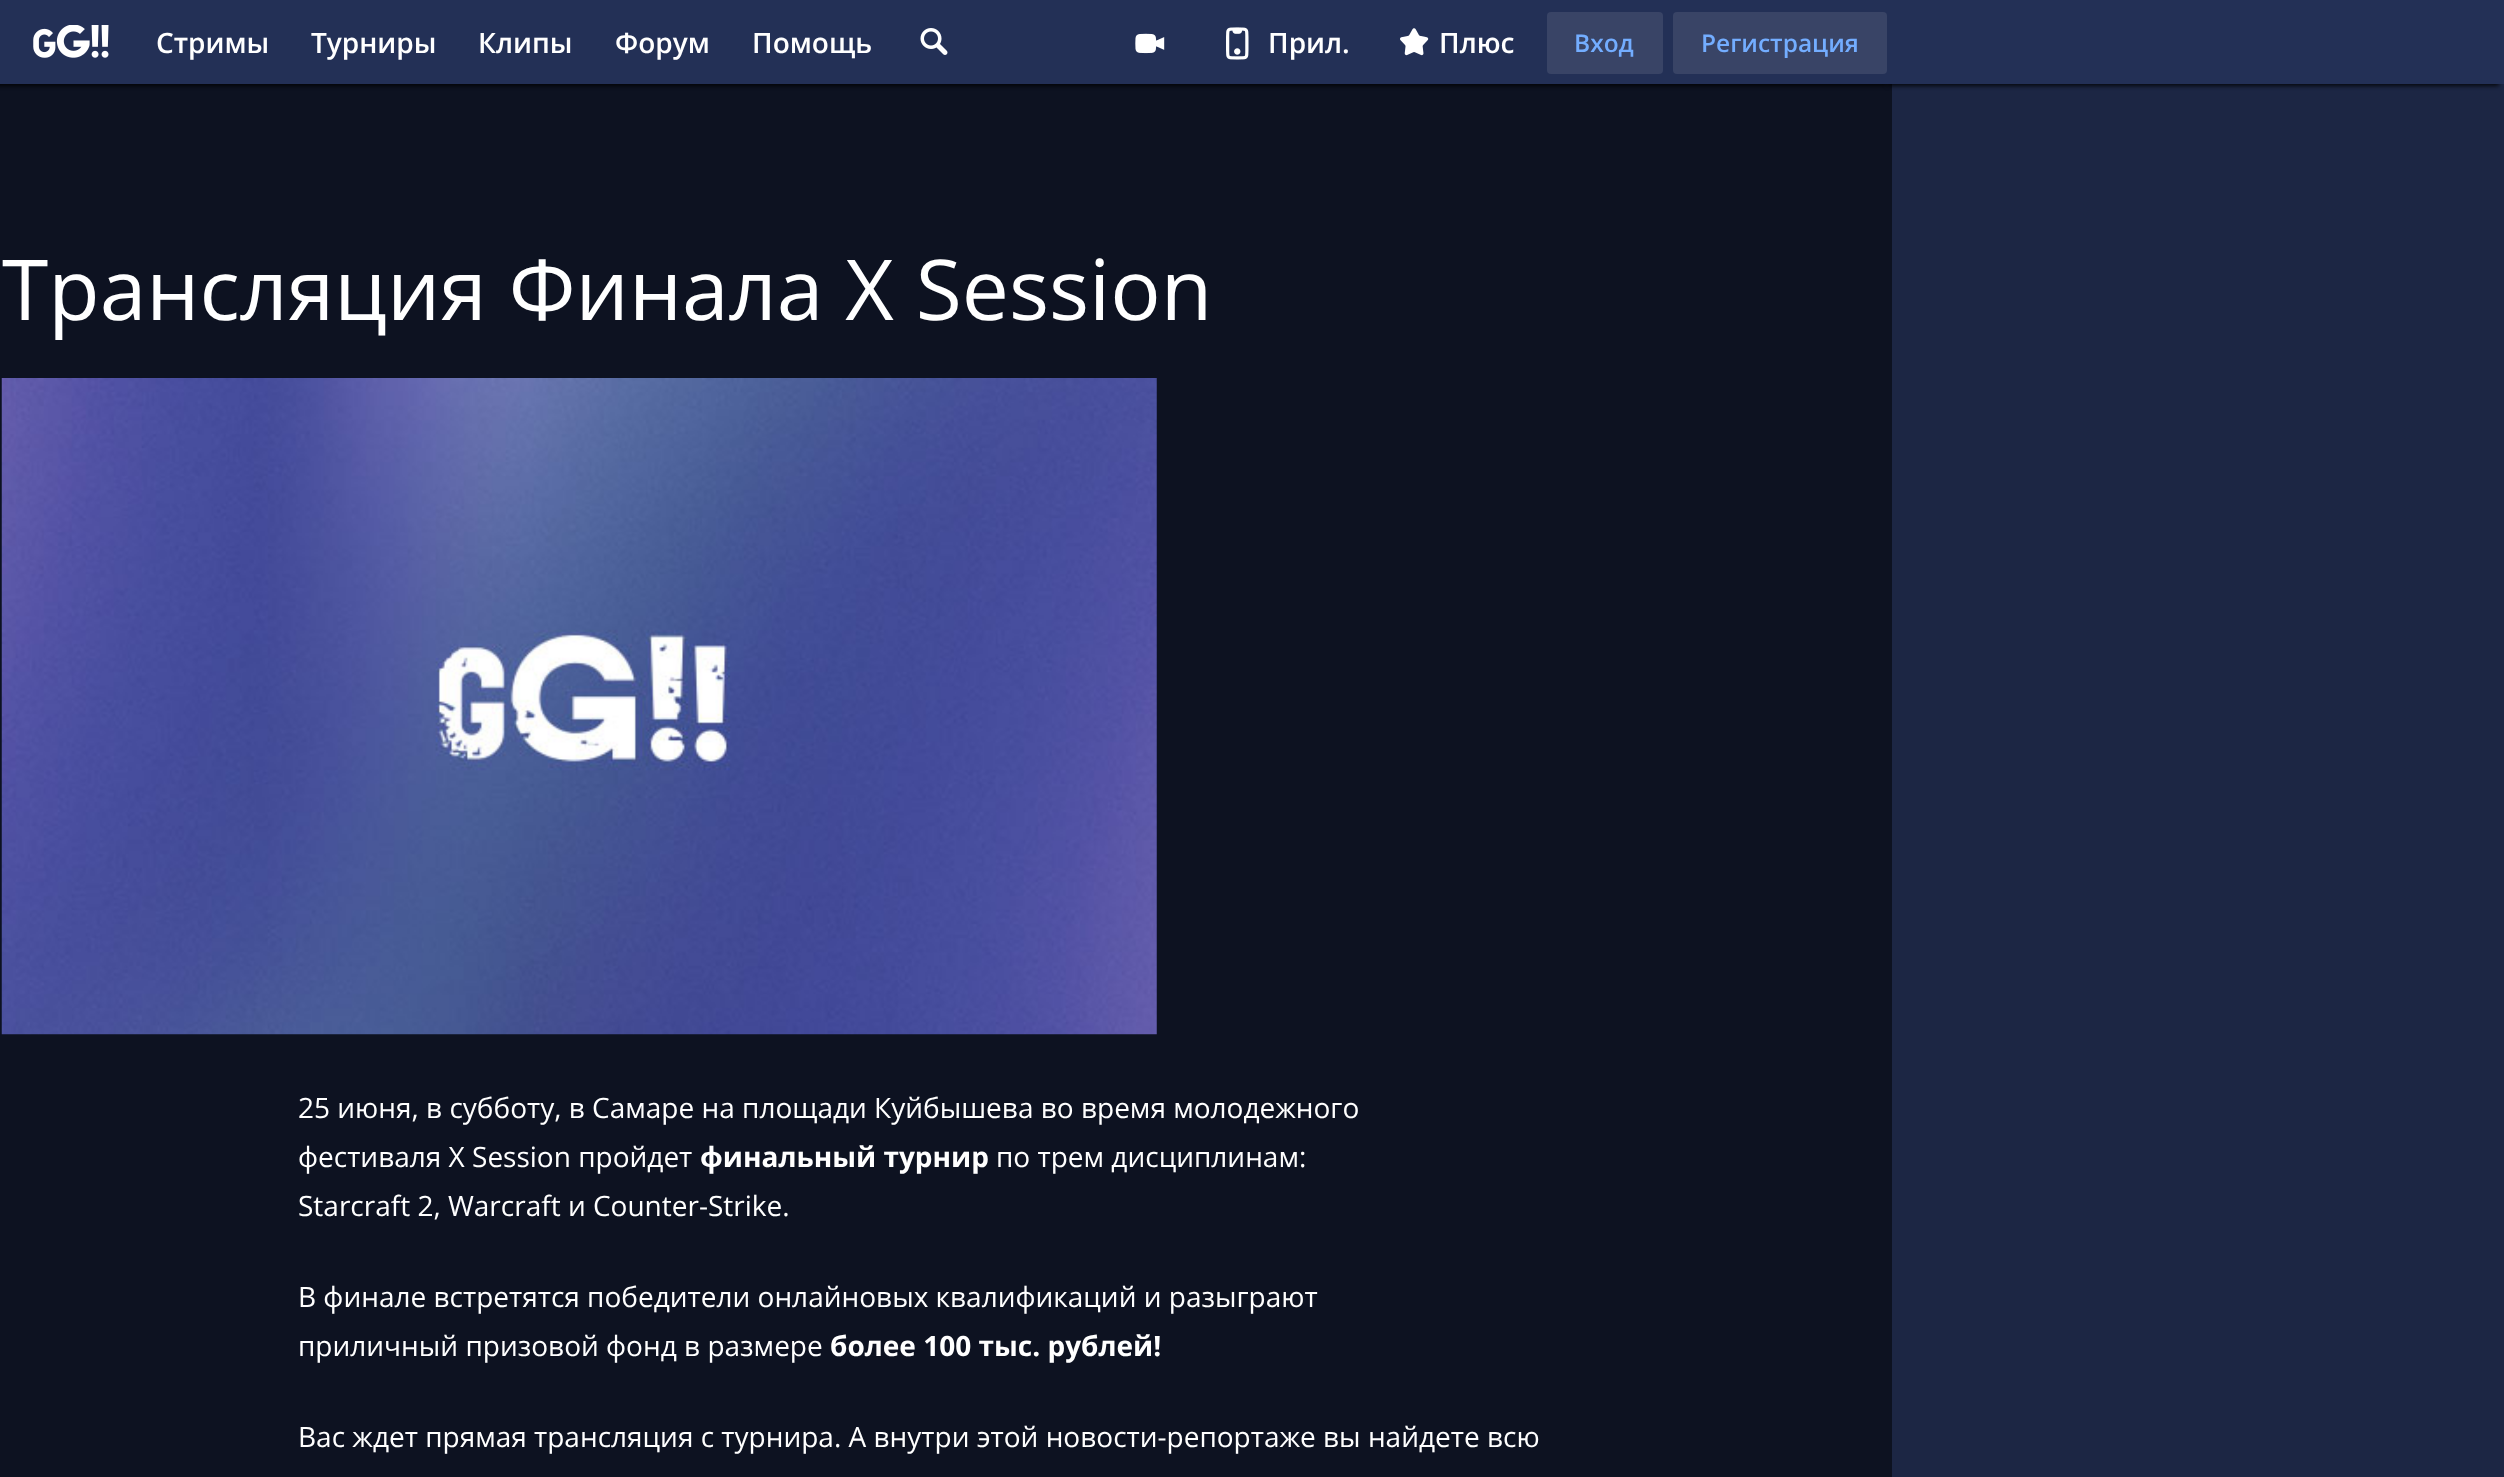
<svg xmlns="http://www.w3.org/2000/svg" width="2504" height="1477">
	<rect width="100%" height="100%" fill="#1C2644" />
	<rect x="0" y="84" width="1892" height="1393" fill="#0D1221" />
	<rect x="1887" y="2" width="612" height="84" fill="#000000" fill-opacity="0.8" filter="blur(2px)" />
	<rect x="1892" y="0" width="612" height="84" fill="#233056" />
	<rect x="-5" y="2" width="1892" height="84" fill="#000000" fill-opacity="0.8" filter="blur(2px)" />
	<rect x="0" y="0" width="1892" height="84" fill="#233056" />
	<image x="33" y="25" width="76" height="33" href="assets/img1.png" />
	<g font-family="Open Sans" font-size="28" font-weight="600" fill="#FFFFFF">
		<text x="156" y="53">Стримы</text>
		<text x="311" y="53">Турниры</text>
		<text x="478" y="53">Клипы</text>
		<text x="615" y="53">Форум</text>
		<text x="752" y="53">Помощь</text>
	</g>
	<image x="920" y="28" width="28" height="27" href="assets/img2.png" />
	<image x="1135" y="33" width="30" height="21" href="assets/img3.png" />
	<image x="1226" y="27" width="23" height="33" href="assets/img4.png" />
	<text x="1268" y="53" font-family="Open Sans" font-size="28" font-weight="600" fill="#FFFFFF">Прил.</text>
	<image x="1400" y="28" width="29" height="28" href="assets/img5.png" />
	<text x="1439" y="53" font-family="Open Sans" font-size="28" font-weight="600" fill="#FFFFFF">Плюс</text>
	<rect x="1547" y="12" width="116" height="62" rx="4" fill="#394466" />
	<text x="1574" y="52" font-family="Open Sans" font-size="24.5" font-weight="600" fill="#73ADFF">Вход</text>
	<rect x="1673" y="12" width="214" height="62" rx="4" fill="#394466" />
	<text x="1701" y="52" font-family="Open Sans" font-size="24.5" font-weight="600" fill="#73ADFF">Регистрация</text>
	<text x="2" y="320" font-family="Open Sans" font-size="84" fill="#FFFFFF">Трансляция Финала X Session</text>
	<image x="1" y="378" width="1156" height="657" href="assets/img6.png" />
	<g font-family="Open Sans" font-size="28" fill="#FFFFFF">
		<text x="298" y="1118">25 июня, в субботу, в Самаре на площади Куйбышева во время молодежного</text>
		<text x="298" y="1167">фестиваля X Session пройдет</text>
	</g>
	<text x="700" y="1167" font-family="Open Sans" font-size="28" font-weight="700" fill="#FFFFFF">финальный турнир</text>
	<g font-family="Open Sans" font-size="28" fill="#FFFFFF">
		<text x="996" y="1167">по трем дисциплинам:</text>
		<text x="298" y="1216">Starcraft 2, Warcraft и Counter-Strike.</text>
		<text x="298" y="1307">В финале встретятся победители онлайновых квалификаций и разыграют</text>
		<text x="298" y="1356">приличный призовой фонд в размере</text>
	</g>
	<text x="830" y="1356" font-family="Open Sans" font-size="28" font-weight="700" fill="#FFFFFF">более 100 тыс. рублей!</text>
	<text x="298" y="1447" font-family="Open Sans" font-size="28" fill="#FFFFFF">Вас ждет прямая трансляция с турнира. А внутри этой новости-репортаже вы найдете всю</text>
</svg>
